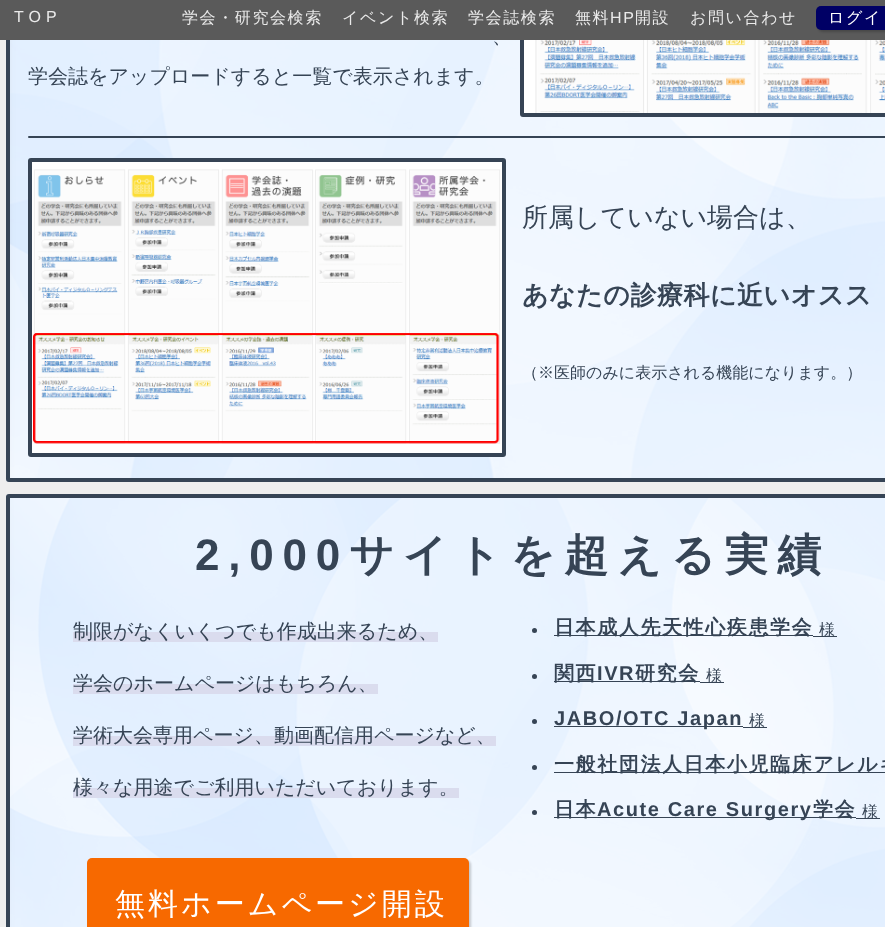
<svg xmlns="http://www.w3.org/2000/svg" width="885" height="927">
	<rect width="100%" height="100%" fill="#EEEEEE" />
	<image x="6" y="40" width="879" height="442" href="assets/img1.png" />
	<rect x="8" y="-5" width="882" height="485" rx="1" fill="none" stroke="#364455" stroke-width="4" />
	<rect x="522" y="-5" width="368" height="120" rx="1" fill="none" stroke="#364455" stroke-width="4" />
	<rect x="0" y="0" width="885" height="40" fill="#5A5A5A" />
	<text x="14" y="22" font-family="Liberation Sans" font-size="16" letter-spacing="5" fill="#EAEAEA">TOP</text>
	<g font-family="WenQuanYi Zen Hei" font-size="16" font-weight="500" letter-spacing="1.6" fill="#EAEAEA">
		<text x="182" y="23">学会・研究会検索</text>
		<text x="342" y="23">イベント検索</text>
		<text x="468" y="23">学会誌検索</text>
		<text x="575" y="23">無料</text>
	</g>
	<text x="610" y="23" font-family="Liberation Sans" font-size="16" letter-spacing="1.6" fill="#EAEAEA">HP</text>
	<g font-family="WenQuanYi Zen Hei" font-size="16" font-weight="500" letter-spacing="1.6" fill="#EAEAEA">
		<text x="635" y="23">開設</text>
		<text x="690" y="23">お問い合わせ</text>
	</g>
	<rect x="818" y="8" width="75" height="24" rx="5" fill="#000000" fill-opacity="0.2" filter="blur(1px)" />
	<rect x="816" y="6" width="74" height="24" rx="5" fill="#000065" />
	<text x="828" y="23" font-family="WenQuanYi Zen Hei" font-size="16" font-weight="500" letter-spacing="1.6" fill="#FFFFFF">ログイ</text>
	<g font-family="WenQuanYi Zen Hei" font-size="20" font-weight="500" fill="#364455">
		<text x="492" y="43">、</text>
		<text x="28" y="83">学会誌をアップロードすると一覧で表示されます。</text>
	</g>
	<image x="524" y="40" width="361" height="73" href="assets/img2.png" />
	<rect x="28" y="136" width="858" height="2" rx="1" fill="#364455" />
	<rect x="30" y="160" width="474" height="295" rx="1" fill="none" stroke="#364455" stroke-width="4" />
	<image x="32" y="162" width="470" height="291" href="assets/img3.png" />
	<text x="522" y="226" font-family="WenQuanYi Zen Hei" font-size="26" font-weight="500" fill="#364455">所属していない場合は、</text>
	<text x="522" y="304" font-family="WenQuanYi Zen Hei" font-size="26" font-weight="700" letter-spacing="0.5" fill="#364455">あなたの診療科に近いオスス</text>
	<text x="522" y="378" font-family="WenQuanYi Zen Hei" font-size="16" font-weight="500" fill="#364455">（※医師のみに表示される機能になります。）</text>
	<image x="6" y="494" width="879" height="433" href="assets/img4.png" />
	<rect x="8" y="496" width="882" height="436" rx="1" fill="none" stroke="#364455" stroke-width="4" />
	<text x="195" y="570" font-family="Liberation Sans" font-size="44" font-weight="700" letter-spacing="8.75" fill="#364455">2,000</text>
	<text x="349" y="570" font-family="WenQuanYi Zen Hei" font-size="44" font-weight="700" letter-spacing="8.75" fill="#364455">サイトを超える実績</text>
	<rect x="73" y="632" width="365" height="10" fill="#DADCEE" />
	<text x="73" y="638" font-family="WenQuanYi Zen Hei" font-size="20" font-weight="500" fill="#364455">制限がなくいくつでも作成出来るため、</text>
	<rect x="73" y="684" width="305" height="10" fill="#DADCEE" />
	<text x="73" y="690" font-family="WenQuanYi Zen Hei" font-size="20" font-weight="500" fill="#364455">学会のホームページはもちろん、</text>
	<rect x="73" y="736" width="423" height="10" fill="#DADCEE" />
	<text x="73" y="742" font-family="WenQuanYi Zen Hei" font-size="20" font-weight="500" fill="#364455">学術大会専用ページ、動画配信用ページなど、</text>
	<rect x="73" y="788" width="386" height="10" fill="#DADCEE" />
	<text x="73" y="794" font-family="WenQuanYi Zen Hei" font-size="20" font-weight="500" fill="#364455">様々な用途でご利用いただいております。</text>
	<rect x="89" y="860" width="382" height="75" rx="5" fill="#000000" fill-opacity="0.2" filter="blur(1px)" />
	<rect x="87" y="858" width="382" height="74" rx="5" fill="#F76900" />
	<text x="115" y="914" font-family="WenQuanYi Zen Hei" font-size="30" font-weight="500" letter-spacing="3" fill="#FFFFFF">無料ホームページ開設</text>
	<circle cx="534.5" cy="630.5" r="2.5" fill="#364455" />
	<rect x="554" y="635" width="259" height="1" fill="#364455" />
	<text x="554" y="634" font-family="WenQuanYi Zen Hei" font-size="20" font-weight="700" letter-spacing="1.6" fill="#364455">日本成人先天性心疾患学会</text>
	<rect x="813" y="636" width="24" height="1" fill="#364455" />
	<text x="819" y="635" font-family="WenQuanYi Zen Hei" font-size="16" font-weight="500" letter-spacing="1.6" fill="#364455">様</text>
	<circle cx="534.5" cy="676.5" r="2.5" fill="#364455" />
	<rect x="554" y="681" width="146" height="1" fill="#364455" />
	<text x="554" y="680" font-family="WenQuanYi Zen Hei" font-size="20" font-weight="700" letter-spacing="1.6" fill="#364455">関西</text>
	<text x="597" y="680" font-family="Liberation Sans" font-size="20" font-weight="700" letter-spacing="1.6" fill="#364455">IVR</text>
	<text x="635" y="680" font-family="WenQuanYi Zen Hei" font-size="20" font-weight="700" letter-spacing="1.6" fill="#364455">研究会</text>
	<rect x="700" y="682" width="24" height="1" fill="#364455" />
	<text x="706" y="681" font-family="WenQuanYi Zen Hei" font-size="16" font-weight="500" letter-spacing="1.6" fill="#364455">様</text>
	<circle cx="534.5" cy="721.5" r="2.5" fill="#364455" />
	<rect x="554" y="726" width="189" height="1" fill="#364455" />
	<text x="554" y="725" font-family="Liberation Sans" font-size="20" font-weight="700" letter-spacing="1.6" fill="#364455">JABO/OTC Japan</text>
	<rect x="743" y="727" width="24" height="1" fill="#364455" />
	<text x="749" y="726" font-family="WenQuanYi Zen Hei" font-size="16" font-weight="500" letter-spacing="1.6" fill="#364455">様</text>
	<circle cx="534.5" cy="767.5" r="2.5" fill="#364455" />
	<rect x="554" y="772" width="331" height="1" fill="#364455" />
	<text x="554" y="771" font-family="WenQuanYi Zen Hei" font-size="20" font-weight="700" letter-spacing="1.6" fill="#364455">一般社団法人日本小児臨床アレルギ</text>
	<circle cx="534.5" cy="812.5" r="2.5" fill="#364455" />
	<rect x="554" y="817" width="302" height="1" fill="#364455" />
	<text x="554" y="816" font-family="WenQuanYi Zen Hei" font-size="20" font-weight="700" letter-spacing="1.6" fill="#364455">日本</text>
	<text x="597" y="816" font-family="Liberation Sans" font-size="20" font-weight="700" letter-spacing="1.6" fill="#364455">Acute Care Surgery</text>
	<text x="813" y="816" font-family="WenQuanYi Zen Hei" font-size="20" font-weight="700" letter-spacing="1.6" fill="#364455">学会</text>
	<rect x="856" y="818" width="24" height="1" fill="#364455" />
	<text x="862" y="817" font-family="WenQuanYi Zen Hei" font-size="16" font-weight="500" letter-spacing="1.6" fill="#364455">様</text>
</svg>
